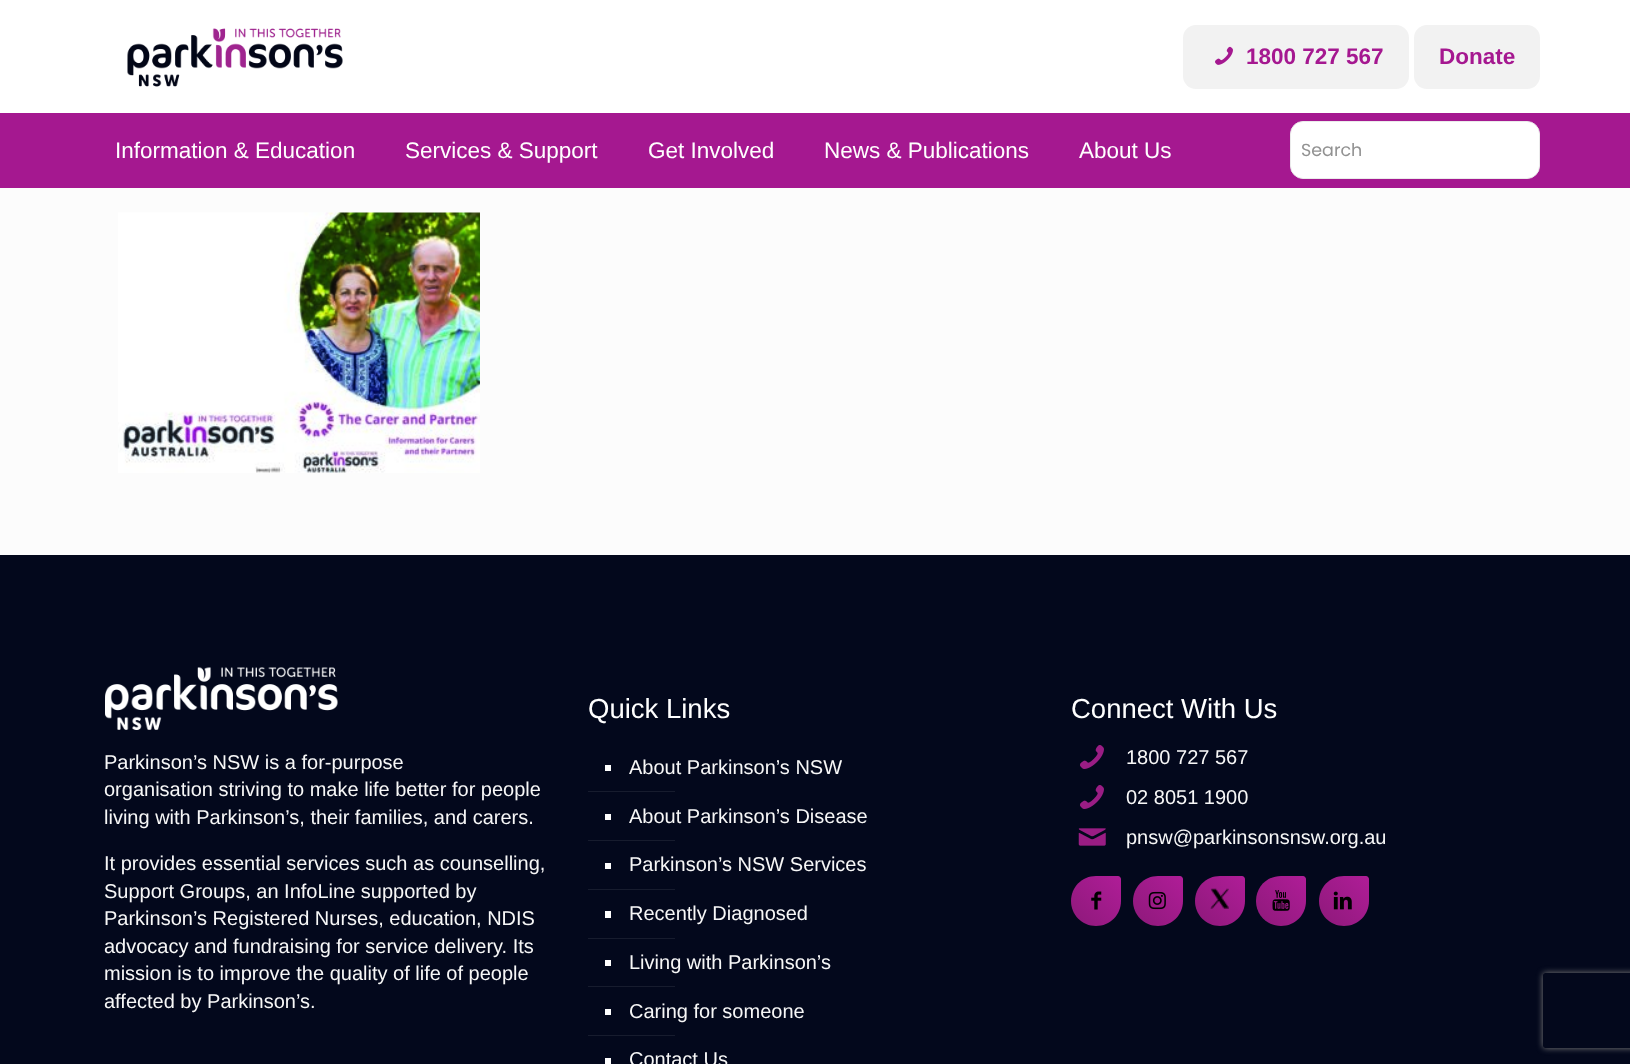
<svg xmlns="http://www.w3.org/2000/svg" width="1630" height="1064">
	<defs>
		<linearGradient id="g1" gradientUnits="userSpaceOnUse" x1="1071" y1="926" x2="1160" y2="838"><stop offset="0" stop-color="#8D197A" /><stop offset="1" stop-color="#CA20AE" /></linearGradient>
		<linearGradient id="g2" gradientUnits="userSpaceOnUse" x1="1133" y1="926" x2="1221" y2="838"><stop offset="0" stop-color="#8D197A" /><stop offset="1" stop-color="#CA20AE" /></linearGradient>
		<linearGradient id="g3" gradientUnits="userSpaceOnUse" x1="1195" y1="926" x2="1283" y2="838"><stop offset="0" stop-color="#8D197A" /><stop offset="1" stop-color="#CA20AE" /></linearGradient>
		<linearGradient id="g4" gradientUnits="userSpaceOnUse" x1="1256" y1="926" x2="1345" y2="838"><stop offset="0" stop-color="#8D197A" /><stop offset="1" stop-color="#CA20AE" /></linearGradient>
		<linearGradient id="g5" gradientUnits="userSpaceOnUse" x1="1319" y1="926" x2="1407" y2="838"><stop offset="0" stop-color="#8D197A" /><stop offset="1" stop-color="#CA20AE" /></linearGradient>
		<clipPath id="clip1"><path d="M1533 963H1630V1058H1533ZM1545.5 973H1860.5C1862 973 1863 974 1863 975.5V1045.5C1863 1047 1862 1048 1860.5 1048H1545.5C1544 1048 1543 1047 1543 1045.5V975.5C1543 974 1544 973 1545.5 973Z" clip-rule="evenodd" /></clipPath>
	</defs>
	<rect width="100%" height="100%" fill="#FCFCFC" />
	<rect x="0" y="0" width="1630" height="113" fill="#FFFFFF" />
	<image x="127" y="28" width="216" height="59" href="assets/img1.png" />
	<rect x="1183" y="25" width="226" height="64" rx="13" fill="#F2F2F2" />
	<image x="1215" y="46" width="18" height="19" href="assets/img2.png" />
	<text x="1246" y="64" font-family="Liberation Sans" font-size="22.5" font-weight="700" fill="#A51890">1800 727 567</text>
	<rect x="1414" y="25" width="126" height="64" rx="13" fill="#F2F2F2" />
	<text x="1439" y="64" font-family="Liberation Sans" font-size="22.5" font-weight="700" fill="#A51890">Donate</text>
	<rect x="0" y="113" width="1630" height="75" fill="#A51890" />
	<g font-family="Liberation Sans" font-size="22.5" fill="#FFFFFF">
		<text x="115" y="158">Information &amp; Education</text>
		<text x="405" y="158">Services &amp; Support</text>
		<text x="648" y="158">Get Involved</text>
		<text x="824" y="158">News &amp; Publications</text>
		<text x="1079" y="158">About Us</text>
	</g>
	<rect x="1290.5" y="121.5" width="249" height="57" rx="12.5" fill="#FFFFFF" stroke="#EBEBEB" />
	<text x="1301" y="156" font-family="Poppins" font-size="17.5" fill="#929292">Search</text>
	<image x="118" y="212" width="362" height="261" href="assets/img3.png" />
	<rect x="0" y="555" width="1630" height="509" fill="#03081C" />
	<image x="105" y="667" width="233" height="63" href="assets/img4.png" />
	<g font-family="Liberation Sans" font-size="20" fill="#F7F7F7">
		<text x="104" y="769">Parkinson’s NSW is a for-purpose</text>
		<text x="104" y="796">organisation striving to make life better for people</text>
		<text x="104" y="824">living with Parkinson’s, their families, and carers.</text>
		<text x="104" y="870">It provides essential services such as counselling,</text>
		<text x="104" y="898">Support Groups, an InfoLine supported by</text>
		<text x="104" y="925">Parkinson’s Registered Nurses, education, NDIS</text>
		<text x="104" y="953">advocacy and fundraising for service delivery. Its</text>
		<text x="104" y="980">mission is to improve the quality of life of people</text>
		<text x="104" y="1008">affected by Parkinson’s.</text>
	</g>
	<text x="588" y="718" font-family="Liberation Sans" font-size="27.5" fill="#FFFFFF">Quick Links</text>
	<rect x="605" y="765" width="6" height="6" fill="#FFFFFF" />
	<text x="629" y="774" font-family="Liberation Sans" font-size="20" fill="#F7F7F7">About Parkinson’s NSW</text>
	<rect x="588" y="791" width="87" height="1" fill="#171C2E" />
	<rect x="605" y="814" width="6" height="6" fill="#FFFFFF" />
	<text x="629" y="823" font-family="Liberation Sans" font-size="20" fill="#F7F7F7">About Parkinson’s Disease</text>
	<rect x="588" y="840" width="87" height="1" fill="#171C2E" />
	<rect x="605" y="863" width="6" height="6" fill="#FFFFFF" />
	<text x="629" y="871" font-family="Liberation Sans" font-size="20" fill="#F7F7F7">Parkinson’s NSW Services</text>
	<rect x="588" y="889" width="87" height="1" fill="#171C2E" />
	<rect x="605" y="911" width="6" height="7" fill="#FFFFFF" />
	<text x="629" y="920" font-family="Liberation Sans" font-size="20" fill="#F7F7F7">Recently Diagnosed</text>
	<rect x="588" y="938" width="87" height="1" fill="#171C2E" />
	<rect x="605" y="960" width="6" height="6" fill="#FFFFFF" />
	<text x="629" y="969" font-family="Liberation Sans" font-size="20" fill="#F7F7F7">Living with Parkinson’s</text>
	<rect x="588" y="986" width="87" height="1" fill="#171C2E" />
	<rect x="605" y="1009" width="6" height="6" fill="#FFFFFF" />
	<text x="629" y="1018" font-family="Liberation Sans" font-size="20" fill="#F7F7F7">Caring for someone</text>
	<rect x="588" y="1035" width="87" height="1" fill="#171C2E" />
	<rect x="605" y="1058" width="6" height="6" fill="#FFFFFF" />
	<text x="629" y="1066" font-family="Liberation Sans" font-size="20" fill="#F7F7F7">Contact Us</text>
	<text x="1071" y="718" font-family="Liberation Sans" font-size="27.5" fill="#FFFFFF">Connect With Us</text>
	<image x="1080" y="745" width="24" height="24" href="assets/img5.png" />
	<text x="1126" y="764" font-family="Liberation Sans" font-size="20" fill="#F7F7F7">1800 727 567</text>
	<image x="1080" y="785" width="24" height="24" href="assets/img5.png" />
	<text x="1126" y="804" font-family="Liberation Sans" font-size="20" fill="#F7F7F7">02 8051 1900</text>
	<image x="1078" y="828" width="28" height="18" href="assets/img6.png" />
	<text x="1126" y="844" font-family="Liberation Sans" font-size="20" fill="#F7F7F7">pnsw@parkinsonsnsw.org.au</text>
	<path d="M1096 876H1118C1119.5 876 1121 877.5 1121 879V901C1121 915 1110 926 1096 926C1082 926 1071 915 1071 901C1071 887 1082 876 1096 876Z" fill="url(#g1)" />
	<image x="1091" y="891" width="11" height="19" href="assets/img7.png" />
	<path d="M1158 876H1180C1181.5 876 1183 877.5 1183 879V901C1183 915 1172 926 1158 926C1144 926 1133 915 1133 901C1133 887 1144 876 1158 876Z" fill="url(#g2)" />
	<image x="1148" y="891" width="18" height="19" href="assets/img8.png" />
	<path d="M1220 876H1242C1243.5 876 1245 877.5 1245 879V901C1245 915 1234 926 1220 926C1206 926 1195 915 1195 901C1195 887 1206 876 1220 876Z" fill="url(#g3)" />
	<image x="1210" y="888" width="19" height="21" href="assets/img9.png" />
	<path d="M1281 876H1303C1304.5 876 1306 877.5 1306 879V901C1306 915 1295 926 1281 926C1267 926 1256 915 1256 901C1256 887 1267 876 1281 876Z" fill="url(#g4)" />
	<image x="1272" y="890" width="18" height="21" href="assets/img10.png" />
	<path d="M1344 876H1366C1367.5 876 1369 877.5 1369 879V901C1369 915 1358 926 1344 926C1330 926 1319 915 1319 901C1319 887 1330 876 1344 876Z" fill="url(#g5)" />
	<image x="1333" y="891" width="19" height="19" href="assets/img11.png" />
	<g clip-path="url(#clip1)">
		<rect x="1543" y="973" width="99" height="75" rx="2.5" fill="#808080" filter="blur(3px)" />
	</g>
</svg>
